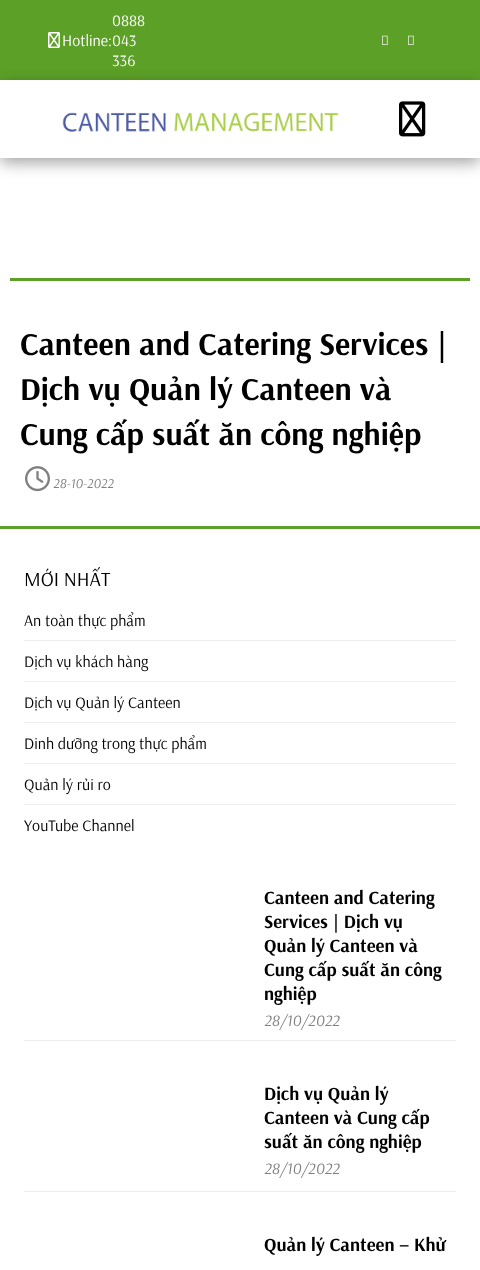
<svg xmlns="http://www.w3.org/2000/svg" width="480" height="1270">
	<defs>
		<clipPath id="clip1"><path d="M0 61H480V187H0ZM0 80H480V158H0Z" clip-rule="evenodd" /></clipPath>
	</defs>
	<rect width="100%" height="100%" fill="#FFFFFF" />
	<rect x="0" y="0" width="480" height="80" fill="#5CA027" />
	<image x="48" y="32" width="12" height="16" href="assets/img1.png" />
	<text x="112" y="26" font-family="Arsenal" font-size="16" fill="#FFFFFF">0888</text>
	<g clip-path="url(#clip1)">
		<rect x="0" y="85" width="480" height="78" fill="#000000" fill-opacity="0.35" filter="blur(7.5px)" />
	</g>
	<g font-family="Arsenal" font-size="16" fill="#FFFFFF">
		<text x="112" y="66">336</text>
		<text x="62" y="46">Hotline:043</text>
	</g>
	<image x="382" y="35" width="6" height="10" href="assets/img2.png" />
	<image x="408" y="35" width="6" height="10" href="assets/img2.png" />
	<image x="62" y="112" width="277" height="20" href="assets/img3.png" />
	<image x="399" y="101" width="27" height="36" href="assets/img4.png" />
	<rect x="0" y="526" width="480" height="3" fill="#5CA027" />
	<rect x="10" y="278" width="460" height="3" fill="#5CA027" />
	<g font-family="Arsenal" font-size="32" font-weight="700" fill="#000000">
		<text x="20" y="355">Canteen and Catering Services |</text>
		<text x="20" y="400">Dịch vụ Quản lý Canteen và</text>
		<text x="20" y="445">Cung cấp suất ăn công nghiệp</text>
	</g>
	<image x="25" y="466" width="25" height="26" href="assets/img5.png" />
	<text x="53" y="488" font-family="Arsenal" font-size="13.5" font-style="italic" fill="#808080">28-10-2022</text>
	<text x="24" y="586" font-family="Arsenal" font-size="20" fill="#000000">MỚI NHẤT</text>
	<rect x="24" y="640" width="432" height="1" fill="#EEEEEE" />
	<text x="24" y="626" font-family="Arsenal" font-size="16" fill="#000000">An toàn thực phẩm</text>
	<rect x="24" y="681" width="432" height="1" fill="#EEEEEE" />
	<text x="24" y="667" font-family="Arsenal" font-size="16" fill="#000000">Dịch vụ khách hàng</text>
	<rect x="24" y="722" width="432" height="1" fill="#EEEEEE" />
	<text x="24" y="708" font-family="Arsenal" font-size="16" fill="#000000">Dịch vụ Quản lý Canteen</text>
	<rect x="24" y="763" width="432" height="1" fill="#EEEEEE" />
	<text x="24" y="749" font-family="Arsenal" font-size="16" fill="#000000">Dinh dưỡng trong thực phẩm</text>
	<rect x="24" y="804" width="432" height="1" fill="#EEEEEE" />
	<g font-family="Arsenal" font-size="16" fill="#000000">
		<text x="24" y="790">Quản lý rủi ro</text>
		<text x="24" y="831">YouTube Channel</text>
	</g>
	<rect x="24" y="1040" width="432" height="1" fill="#EEEEEE" />
	<g font-family="Arsenal" font-size="18.75" font-weight="700" fill="#000000">
		<text x="264" y="904">Canteen and Catering</text>
		<text x="264" y="928">Services | Dịch vụ</text>
		<text x="264" y="952">Quản lý Canteen và</text>
		<text x="264" y="976">Cung cấp suất ăn công</text>
		<text x="264" y="1000">nghiệp</text>
	</g>
	<text x="264" y="1026" font-family="Arsenal" font-size="16" font-style="italic" fill="#808080">28/10/2022</text>
	<rect x="24" y="1191" width="432" height="1" fill="#EEEEEE" />
	<g font-family="Arsenal" font-size="18.75" font-weight="700" fill="#000000">
		<text x="264" y="1100">Dịch vụ Quản lý</text>
		<text x="264" y="1124">Canteen và Cung cấp</text>
		<text x="264" y="1148">suất ăn công nghiệp</text>
	</g>
	<text x="264" y="1174" font-family="Arsenal" font-size="16" font-style="italic" fill="#808080">28/10/2022</text>
	<text x="264" y="1251" font-family="Arsenal" font-size="18.75" font-weight="700" fill="#000000">Quản lý Canteen – Khử</text>
</svg>
